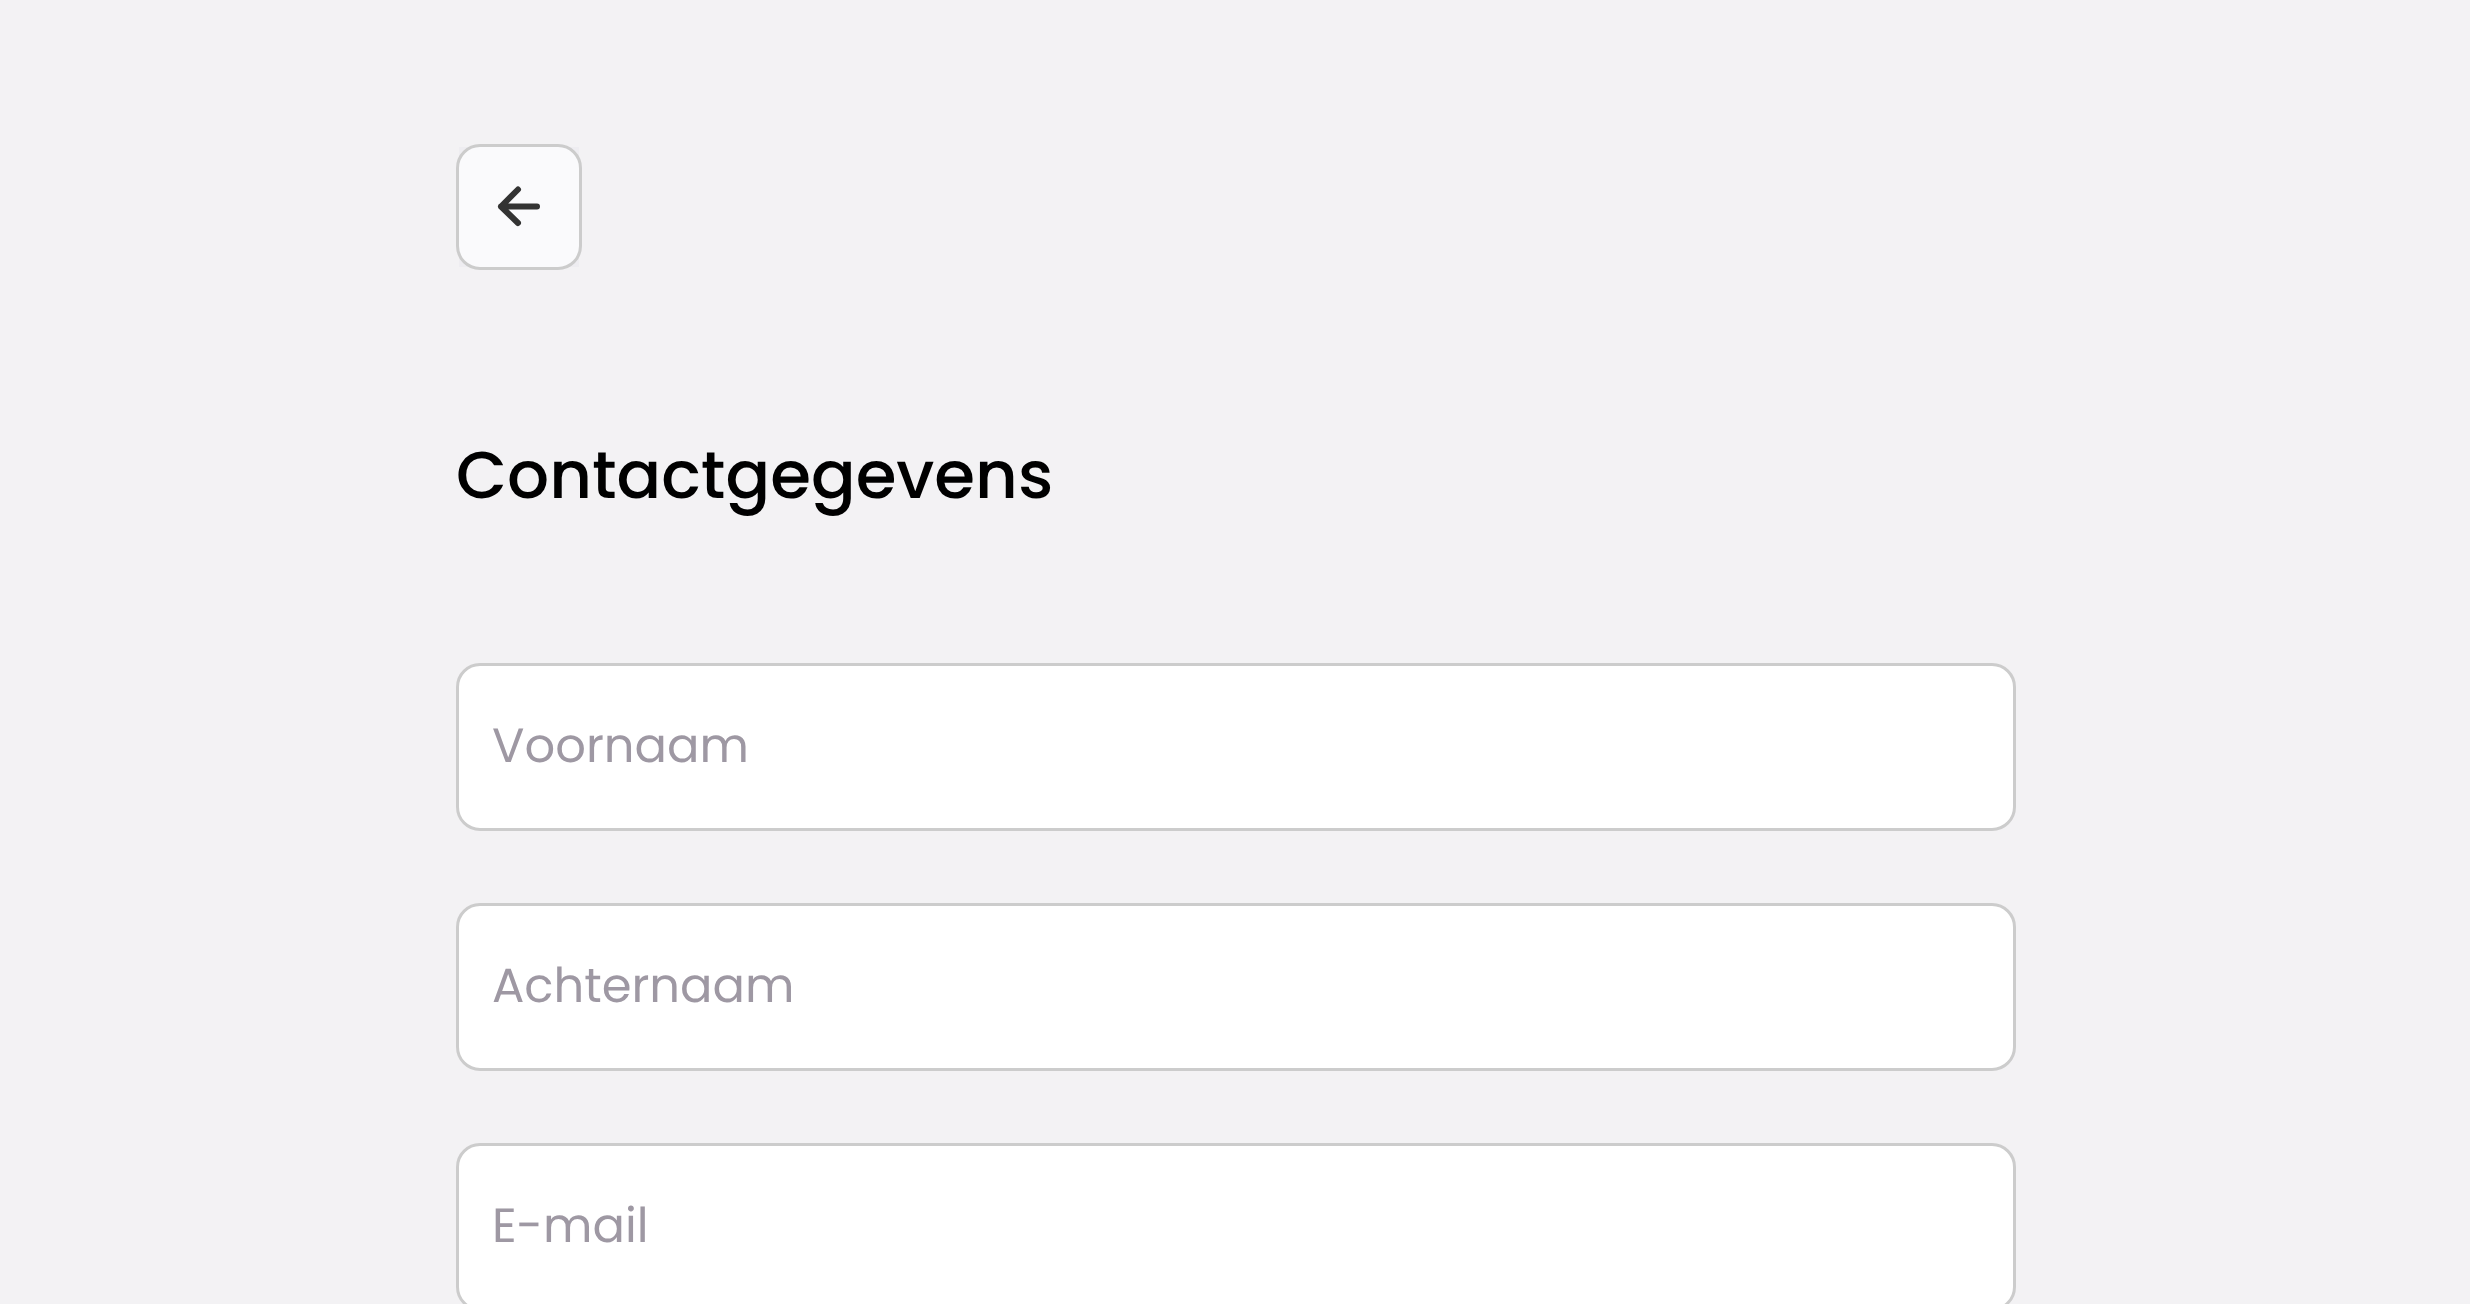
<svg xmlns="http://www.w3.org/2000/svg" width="2470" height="1304">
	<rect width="100%" height="100%" fill="#F3F2F4" />
	<rect x="458" y="146" width="123" height="123" rx="23" fill="#FFFFFF" />
	<rect x="459" y="147" width="120" height="120" fill="#6750A4" fill-opacity="0.03" />
	<rect x="457.5" y="145.5" width="123" height="123" rx="22.5" fill="none" stroke="#CCCCCC" stroke-width="3" />
	<path d="M518 189.5L501 206.5L518 223M501 206.5H537" fill="none" stroke="#333333" stroke-width="6" stroke-linecap="round" stroke-linejoin="round" />
	<text x="456" y="498" font-family="Poppins" font-size="66" font-weight="500" fill="#000000">Contactgegevens</text>
	<rect x="457.5" y="664.5" width="1557" height="165" rx="22.5" fill="#FFFFFF" stroke="#CCCCCC" stroke-width="3" />
	<text x="492" y="762" font-family="Poppins" font-size="48" fill="#9E98A3">Voornaam</text>
	<rect x="457.5" y="904.5" width="1557" height="165" rx="22.5" fill="#FFFFFF" stroke="#CCCCCC" stroke-width="3" />
	<text x="492" y="1002" font-family="Poppins" font-size="48" fill="#9E98A3">Achternaam</text>
	<rect x="457.5" y="1144.5" width="1557" height="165" rx="22.5" fill="#FFFFFF" stroke="#CCCCCC" stroke-width="3" />
	<text x="492" y="1242" font-family="Poppins" font-size="48" fill="#9E98A3">E-mail</text>
</svg>
